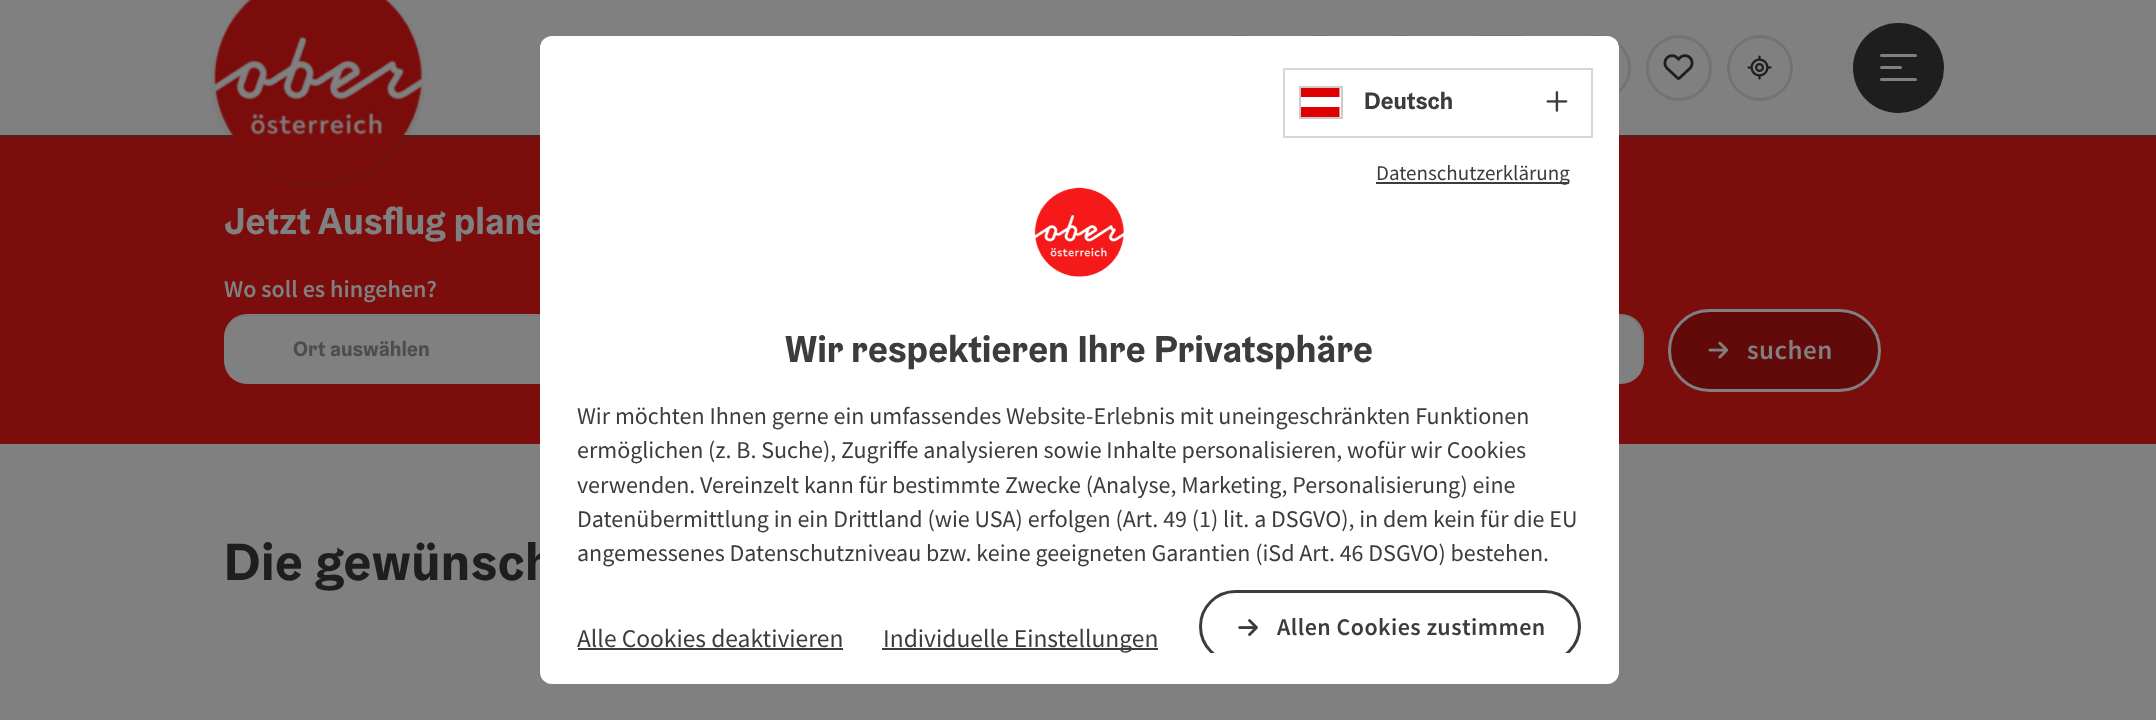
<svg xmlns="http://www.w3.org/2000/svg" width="2156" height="720">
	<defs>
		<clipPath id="clip1"><rect x="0" y="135" width="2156" height="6" /></clipPath>
		<clipPath id="clip2"><rect x="566" y="68" width="1027" height="585" /></clipPath>
		<clipPath id="clip3"><path d="M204 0H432V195H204ZM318-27C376-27 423 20 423 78C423 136 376 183 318 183C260 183 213 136 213 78C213 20 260-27 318-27Z" clip-rule="evenodd" /></clipPath>
	</defs>
	<rect width="100%" height="100%" fill="#808080" />
	<rect x="0" y="135" width="2156" height="309" fill="#7B0D0D" />
	<g clip-path="url(#clip1)">
		<rect x="-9" y="12" width="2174" height="123" fill="#333333" filter="blur(3px)" />
	</g>
	<circle cx="1239" cy="68" r="31.5" fill="none" stroke="#737373" stroke-width="3" />
	<circle cx="1320" cy="68" r="31.5" fill="none" stroke="#737373" stroke-width="3" />
	<circle cx="1401" cy="68" r="31.5" fill="none" stroke="#737373" stroke-width="3" />
	<rect x="1450.5" y="36.5" width="98" height="63" rx="31.5" fill="none" stroke="#737373" stroke-width="3" />
	<circle cx="1598" cy="68" r="31.5" fill="none" stroke="#737373" stroke-width="3" />
	<text x="224" y="234" font-family="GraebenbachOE" font-size="37.5" font-weight="700" fill="#808080">Jetzt Ausflug plane</text>
	<rect x="224" y="314" width="699" height="70" rx="23" fill="#808080" />
	<path d="M246 316H900C912 316 921 326 921 338V336C921 324 912 315 900 315H246C234 315 225 324 225 336V338C225 326 234 316 246 316Z" fill="#767676" />
	<rect x="947" y="314" width="697" height="70" rx="23" fill="#808080" />
	<path d="M969 316H1622C1633 316 1642 326 1642 338V363C1642 367 1641 371 1639 375C1641 371 1643 367 1643 362V336C1643 324 1634 315 1622 315H969C957 315 948 324 948 336V338C948 326 957 316 969 316Z" fill="#767676" />
	<text x="224" y="580" font-family="GraebenbachOE" font-size="52.5" font-weight="700" letter-spacing="0.5" fill="#1E1E1E">Die gewünsch</text>
	<rect x="540" y="36" width="1079" height="648" rx="12" fill="#FFFFFF" />
	<rect x="1284" y="69" width="308" height="68" fill="none" stroke="#D6D6D6" stroke-width="2" />
	<path d="M1339.5 117H1300V107H1339.5ZM1339.5 97H1300V87H1339.5Z" fill="#DF0000" fill-rule="evenodd" />
	<rect x="1300" y="87" width="42" height="31" fill="none" stroke="#CCCCCC" stroke-width="2" />
	<text x="1364" y="109" font-family="GraebenbachOE" font-size="24" font-weight="700" fill="#3C3C3C">Deutsch</text>
	<image x="1546" y="91" width="22" height="21" href="assets/img1.png" />
	<rect x="1376" y="182" width="193" height="2" fill="#3C3C3C" />
	<text x="1376" y="180" font-family="Source Sans Pro" font-size="21" fill="#3C3C3C">Datenschutzerklärung</text>
	<image x="1034" y="187" width="90" height="90" href="assets/img2.png" />
	<text x="785" y="362" font-family="GraebenbachOE" font-size="37.5" font-weight="700" fill="#3C3C3C">Wir respektieren Ihre Privatsphäre</text>
	<g font-family="Source Sans Pro" font-size="24" fill="#3C3C3C">
		<text x="577" y="424">Wir möchten Ihnen gerne ein umfassendes Website-Erlebnis mit uneingeschränkten Funktionen</text>
		<text x="577" y="458">ermöglichen (z. B. Suche), Zugriffe analysieren sowie Inhalte personalisieren, wofür wir Cookies</text>
		<text x="577" y="493">verwenden. Vereinzelt kann für bestimmte Zwecke (Analyse, Marketing, Personalisierung) eine</text>
		<text x="577" y="527">Datenübermittlung in ein Drittland (wie USA) erfolgen (Art. 49 (1) lit. a DSGVO), in dem kein für die EU</text>
		<text x="577" y="561">angemessenes Datenschutzniveau bzw. keine geeigneten Garantien (iSd Art. 46 DSGVO) bestehen.</text>
	</g>
	<text x="577" y="647" font-family="Source Sans Pro" font-size="25.5" fill="#3C3C3C">Alle Cookies deaktivieren</text>
	<rect x="578" y="648" width="265" height="2" fill="#3C3C3C" />
	<rect x="882" y="648" width="276" height="2" fill="#3C3C3C" />
	<text x="883" y="647" font-family="Source Sans Pro" font-size="25.5" fill="#3C3C3C">Individuelle Einstellungen</text>
	<g clip-path="url(#clip2)">
		<rect x="1200.5" y="591.5" width="379" height="70" rx="35" fill="none" stroke="#3C3C3C" stroke-width="3" />
	</g>
	<image x="1238" y="619" width="20" height="17" href="assets/img3.png" />
	<text x="1277" y="635" font-family="Source Sans Pro" font-size="24" font-weight="600" letter-spacing="0.45" fill="#3C3C3C">Allen Cookies zustimmen</text>
	<g clip-path="url(#clip3)">
		<rect x="219" y="-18" width="198" height="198" rx="99" fill="#333333" filter="blur(4.5px)" />
	</g>
	<image x="213" y="0" width="210" height="141" href="assets/img4.png" />
	<circle cx="1679" cy="68" r="31.5" fill="none" stroke="#737373" stroke-width="3" />
	<image x="1663" y="54" width="31" height="26" href="assets/img5.png" />
	<circle cx="1760" cy="68" r="31.5" fill="none" stroke="#737373" stroke-width="3" />
	<image x="1747" y="55" width="25" height="25" href="assets/img6.png" />
	<rect x="1853" y="23" width="91" height="90" rx="45" fill="#1E1E1E" />
	<rect x="1880" y="54" width="37" height="3" rx="1.5" fill="#808080" />
	<rect x="1880" y="66" width="22" height="3" rx="1.5" fill="#808080" />
	<rect x="1880" y="78" width="37" height="3" rx="1.5" fill="#808080" />
	<text x="224" y="297" font-family="Source Sans Pro" font-size="24" font-weight="600" fill="#808080">Wo soll es hingehen?</text>
	<text x="293" y="356" font-family="GraebenbachOE" font-size="21" font-weight="700" fill="#4D4D4D">Ort auswählen</text>
	<rect x="1669.5" y="310.5" width="210" height="80" rx="40" fill="#620A0A" stroke="#808080" stroke-width="3" />
	<image x="1708" y="341" width="21" height="18" href="assets/img7.png" />
	<text x="1747" y="359" font-family="Source Sans Pro" font-size="27" font-weight="600" letter-spacing="0.45" fill="#808080">suchen</text>
</svg>
